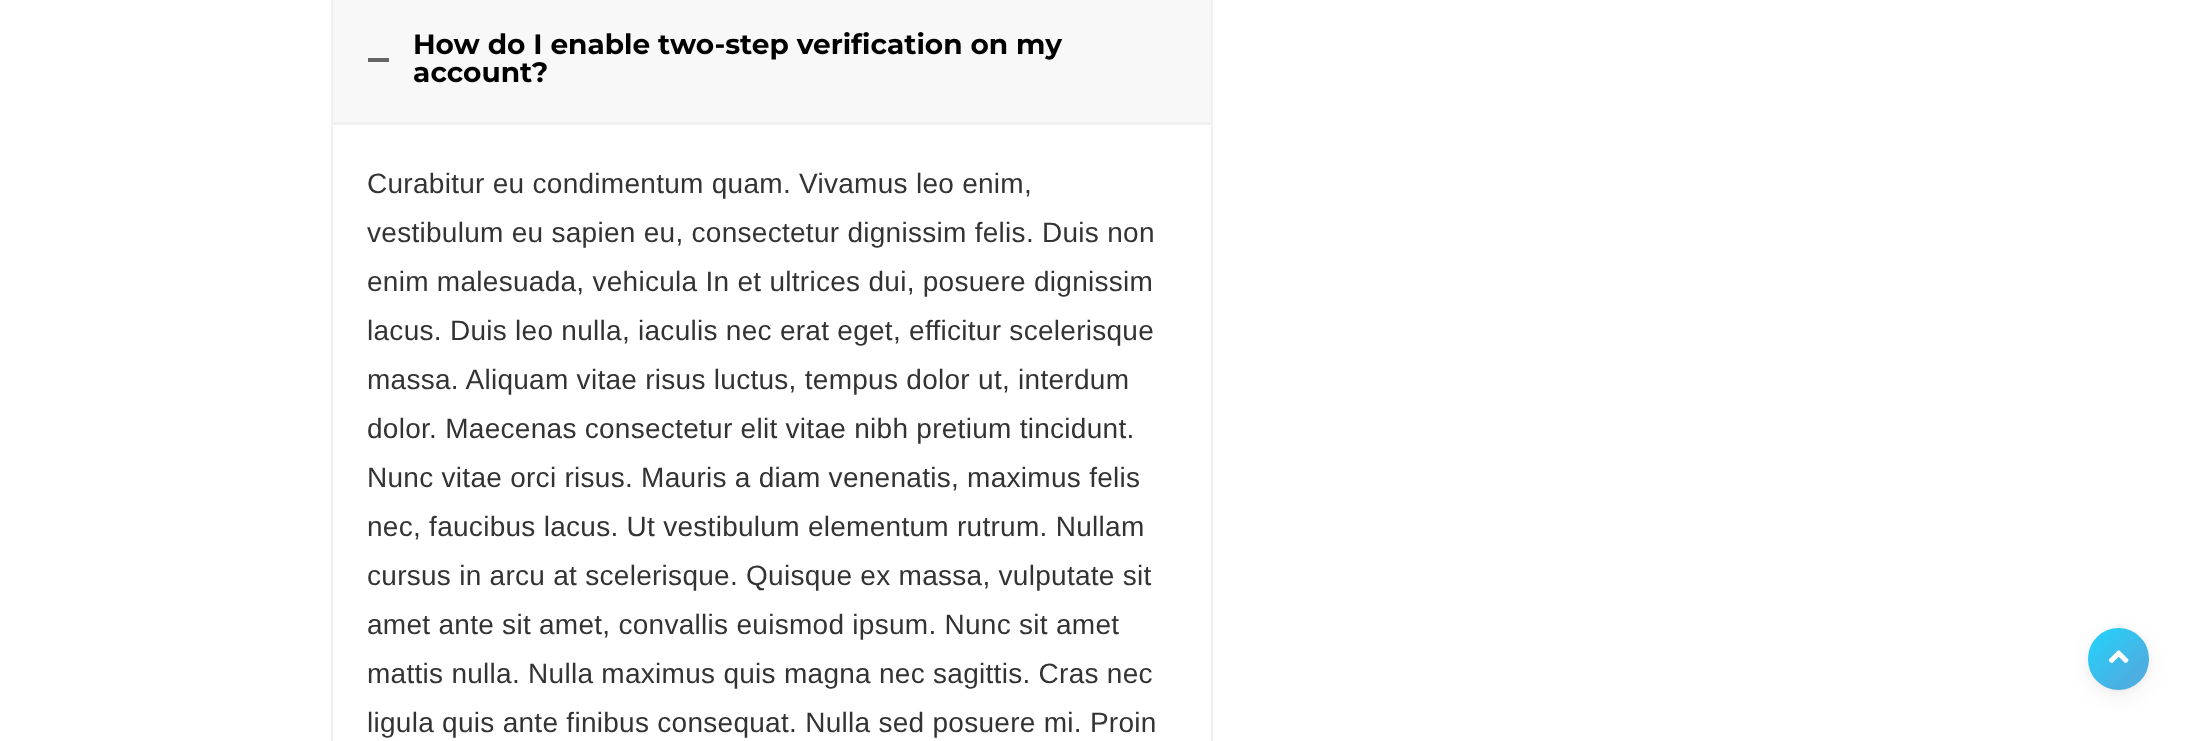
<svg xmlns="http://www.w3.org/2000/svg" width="2201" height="741">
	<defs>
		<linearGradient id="g1" gradientUnits="userSpaceOnUse" x1="2088" y1="628" x2="2149" y2="690"><stop offset="0" stop-color="#21D4FD" /><stop offset="0.75" stop-color="#4CAFE1" /></linearGradient>
	</defs>
	<rect width="100%" height="100%" fill="#FFFFFF" />
	<rect x="332" y="-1" width="880" height="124" fill="#F8F8F8" stroke="#F0F0F0" stroke-width="2" />
	<rect x="368" y="58" width="21" height="4" fill="#666666" />
	<g font-family="Montserrat" font-size="28" font-weight="700" fill="#000000">
		<text x="413" y="54">How do I enable two-step verification on my</text>
		<text x="413" y="82">account?</text>
	</g>
	<rect x="332" y="124" width="880" height="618" fill="none" stroke="#F0F0F0" stroke-width="2" />
	<g font-family="Liberation Sans" font-size="28" letter-spacing="0.28" fill="#333333">
		<text x="367" y="193">Curabitur eu condimentum quam. Vivamus leo enim,</text>
		<text x="367" y="242">vestibulum eu sapien eu, consectetur dignissim felis. Duis non</text>
		<text x="367" y="291">enim malesuada, vehicula In et ultrices dui, posuere dignissim</text>
		<text x="367" y="340">lacus. Duis leo nulla, iaculis nec erat eget, efficitur scelerisque</text>
		<text x="367" y="389">massa. Aliquam vitae risus luctus, tempus dolor ut, interdum</text>
		<text x="367" y="438">dolor. Maecenas consectetur elit vitae nibh pretium tincidunt.</text>
		<text x="367" y="487">Nunc vitae orci risus. Mauris a diam venenatis, maximus felis</text>
		<text x="367" y="536">nec, faucibus lacus. Ut vestibulum elementum rutrum. Nullam</text>
		<text x="367" y="585">cursus in arcu at scelerisque. Quisque ex massa, vulputate sit</text>
		<text x="367" y="634">amet ante sit amet, convallis euismod ipsum. Nunc sit amet</text>
		<text x="367" y="683">mattis nulla. Nulla maximus quis magna nec sagittis. Cras nec</text>
		<text x="367" y="732">ligula quis ante finibus consequat. Nulla sed posuere mi. Proin</text>
	</g>
	<rect x="2088" y="630" width="61" height="61" rx="30.5" fill="#000000" fill-opacity="0.05" filter="blur(3.5px)" />
	<rect x="2088" y="635" width="61" height="62" rx="30.5" fill="#000000" fill-opacity="0.05" filter="blur(10.5px)" />
	<rect x="2088" y="628" width="61" height="62" rx="30.5" fill="url(#g1)" />
	<image x="2108" y="650" width="21" height="13" href="assets/img1.png" />
</svg>
